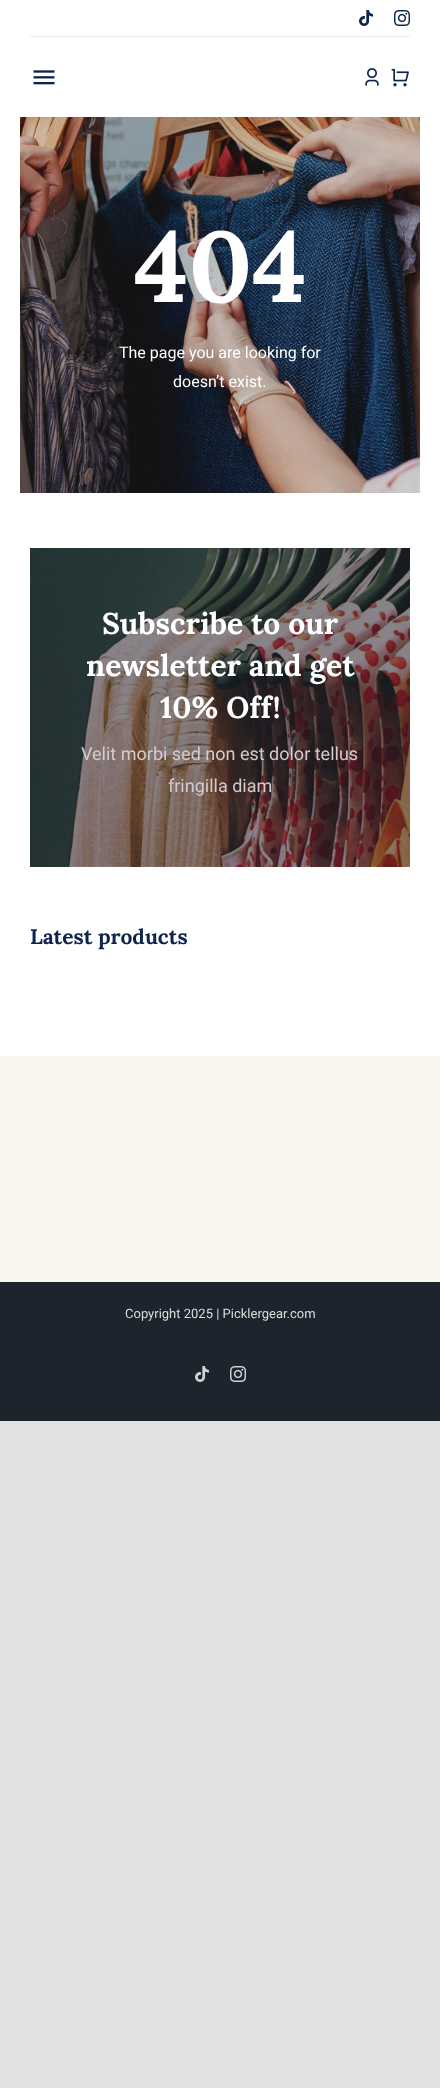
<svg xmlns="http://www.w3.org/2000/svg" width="440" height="2088">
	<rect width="100%" height="100%" fill="#E2E2E2" />
	<rect x="0" y="0" width="440" height="1056" fill="#FFFFFF" />
	<image x="359" y="10" width="14" height="16" href="assets/img1.png" />
	<image x="394" y="10" width="16" height="16" href="assets/img2.png" />
	<rect x="30" y="36" width="380" height="1" fill="#ECEDF1" />
	<image x="33" y="70" width="22" height="15" href="assets/img3.png" />
	<image x="365" y="68" width="14" height="18" href="assets/img4.png" />
	<image x="391" y="68" width="18" height="19" href="assets/img5.png" />
	<image x="20" y="117" width="400" height="376" href="assets/img6.png" />
	<text x="134" y="302" font-family="Lora" font-size="100" font-weight="700" fill="#FFFFFF">404</text>
	<g font-family="Roboto" font-size="16" fill="#FFFFFF">
		<text x="119" y="358">The page you are looking for</text>
		<text x="173" y="387">doesn’t exist.</text>
	</g>
	<image x="30" y="548" width="380" height="319" href="assets/img7.png" />
	<g font-family="Lora" font-size="30" font-weight="700" fill="#FFFFFF">
		<text x="102" y="634">Subscribe to our</text>
		<text x="86" y="676">newsletter and get</text>
		<text x="160" y="718">10% Off!</text>
	</g>
	<g font-family="Roboto" font-size="18" fill="#D2CDCD">
		<text x="81" y="760">Velit morbi sed non est dolor tellus</text>
		<text x="168" y="792">fringilla diam</text>
	</g>
	<text x="30" y="944" font-family="Lora" font-size="21" font-weight="700" fill="#0D244C">Latest products</text>
	<rect x="0" y="1056" width="440" height="226" fill="#F8F5EF" />
	<rect x="0" y="1282" width="440" height="139" fill="#1D242D" />
	<text x="125" y="1318" font-family="Roboto" font-size="13" fill="#DDDDDD">Copyright 2025 | Picklergear.com</text>
	<image x="195" y="1366" width="14" height="16" href="assets/img8.png" />
	<image x="230" y="1366" width="16" height="16" href="assets/img9.png" />
</svg>
